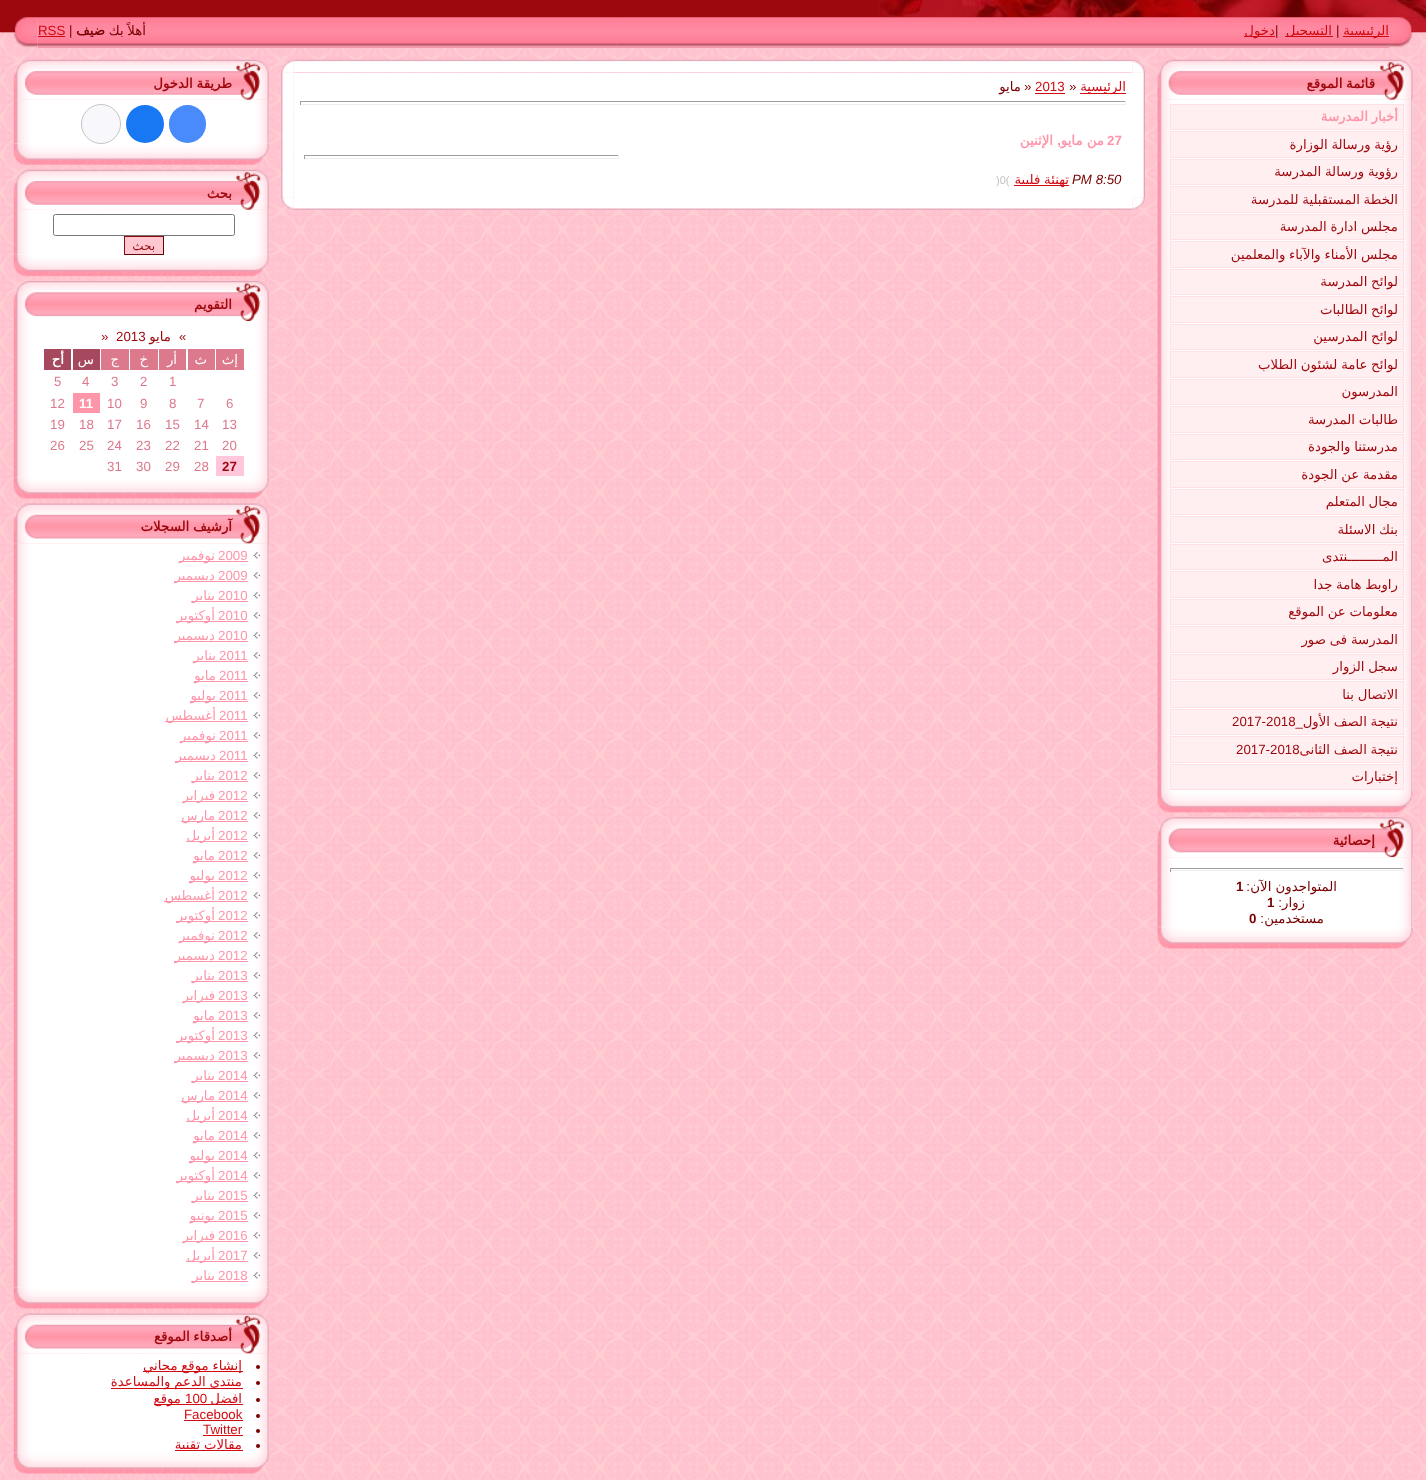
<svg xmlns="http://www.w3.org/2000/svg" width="1426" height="1480">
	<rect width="100%" height="100%" fill="#FFFFFF" />
	<image x="0" y="18" width="1426" height="1462" href="assets/img1.png" />
	<rect x="0" y="0" width="1426" height="18" fill="#9C080D" />
	<image x="878" y="0" width="548" height="18" href="assets/img2.png" />
	<rect x="616" y="18" width="773" height="30" fill="#FF8AA2" />
	<image x="616" y="17" width="773" height="31" href="assets/img4.png" />
	<image x="1388" y="17" width="38" height="31" href="assets/img3.png" />
	<rect x="1343" y="36" width="46" height="1" fill="#D10B12" />
	<text x="1389" y="35" font-family="DejaVu Sans" font-size="13.3" direction="rtl" fill="#D10B12">الرئيسية</text>
	<text x="1336" y="35" font-family="Liberation Sans" font-size="13.3" fill="#790000">|</text>
	<rect x="1285" y="36" width="48" height="1" fill="#D10B12" />
	<text x="1332" y="35" font-family="DejaVu Sans" font-size="13.3" direction="rtl" fill="#D10B12">التسجيل</text>
	<text x="1275" y="35" font-family="Liberation Sans" font-size="13.3" fill="#790000">|</text>
	<rect x="1244" y="36" width="31" height="1" fill="#D10B12" />
	<text x="1275" y="35" font-family="DejaVu Sans" font-size="13.3" direction="rtl" fill="#D10B12">دخول</text>
	<rect x="38" y="47" width="578" height="1" fill="#FF8AA2" />
	<image x="37" y="17" width="580" height="31" href="assets/img5.png" />
	<text x="146" y="35" word-spacing="-0.5" font-family="DejaVu Sans" font-size="13.3" direction="rtl" fill="#790000">أهلاً بك</text>
	<text x="105" y="35" font-family="DejaVu Sans" font-size="13.3" font-weight="700" direction="rtl" fill="#790000">ضيف</text>
	<text x="69" y="35" font-family="Liberation Sans" font-size="13.3" fill="#790000">|</text>
	<text x="38" y="35" font-family="Liberation Sans" font-size="13.3" fill="#D10B12">RSS</text>
	<rect x="38" y="36" width="27" height="1" fill="#D10B12" />
	<image x="0" y="17" width="38" height="31" href="assets/img6.png" />
	<image x="1157" y="59" width="256" height="41" href="assets/img7.png" />
	<text x="1375" y="88" word-spacing="-0.5" font-family="DejaVu Sans" font-size="13.3" font-weight="700" direction="rtl" fill="#9D080D">قائمة الموقع</text>
	<rect x="1412" y="100" width="1" height="691" fill="#FFFFFF" />
	<image x="1157" y="99" width="256" height="692" href="assets/img8.png" />
	<rect x="1170.5" y="104.5" width="233" height="25" fill="#FFEFF1" stroke="#FFE0E4" />
	<text x="1398" y="121" word-spacing="-0.5" font-family="DejaVu Sans" font-size="13.3" font-weight="700" direction="rtl" fill="#FF95A9">أخبار المدرسة</text>
	<rect x="1170.5" y="131.5" width="233" height="26" fill="#FFEFF1" stroke="#FFE0E4" />
	<text x="1398" y="149" word-spacing="-0.5" font-family="DejaVu Sans" font-size="13.3" direction="rtl" fill="#9D080D">رؤية ورسالة الوزارة</text>
	<rect x="1170.5" y="159.5" width="233" height="25" fill="#FFEFF1" stroke="#FFE0E4" />
	<text x="1398" y="176" word-spacing="-0.5" font-family="DejaVu Sans" font-size="13.3" direction="rtl" fill="#9D080D">رؤوية ورسالة المدرسة</text>
	<rect x="1170.5" y="186.5" width="233" height="26" fill="#FFEFF1" stroke="#FFE0E4" />
	<text x="1398" y="204" word-spacing="-0.5" font-family="DejaVu Sans" font-size="13.3" direction="rtl" fill="#9D080D">الخطة المستقبلية للمدرسة</text>
	<rect x="1170.5" y="214.5" width="233" height="25" fill="#FFEFF1" stroke="#FFE0E4" />
	<text x="1398" y="231" word-spacing="-0.5" font-family="DejaVu Sans" font-size="13.3" direction="rtl" fill="#9D080D">مجلس ادارة المدرسة</text>
	<rect x="1170.5" y="241.5" width="233" height="26" fill="#FFEFF1" stroke="#FFE0E4" />
	<text x="1398" y="259" word-spacing="-0.5" font-family="DejaVu Sans" font-size="13.3" direction="rtl" fill="#9D080D">مجلس الأمناء والآباء والمعلمين</text>
	<rect x="1170.5" y="269.5" width="233" height="25" fill="#FFEFF1" stroke="#FFE0E4" />
	<text x="1398" y="286" word-spacing="-0.5" font-family="DejaVu Sans" font-size="13.3" direction="rtl" fill="#9D080D">لوائح المدرسة</text>
	<rect x="1170.5" y="296.5" width="233" height="26" fill="#FFEFF1" stroke="#FFE0E4" />
	<text x="1398" y="314" word-spacing="-0.5" font-family="DejaVu Sans" font-size="13.3" direction="rtl" fill="#9D080D">لوائح الطالبات</text>
	<rect x="1170.5" y="324.5" width="233" height="25" fill="#FFEFF1" stroke="#FFE0E4" />
	<text x="1398" y="341" word-spacing="-0.5" font-family="DejaVu Sans" font-size="13.3" direction="rtl" fill="#9D080D">لوائح المدرسين</text>
	<rect x="1170.5" y="351.5" width="233" height="26" fill="#FFEFF1" stroke="#FFE0E4" />
	<text x="1398" y="369" word-spacing="-0.5" font-family="DejaVu Sans" font-size="13.3" direction="rtl" fill="#9D080D">لوائح عامة لشئون الطلاب</text>
	<rect x="1170.5" y="379.5" width="233" height="25" fill="#FFEFF1" stroke="#FFE0E4" />
	<text x="1398" y="396" font-family="DejaVu Sans" font-size="13.3" direction="rtl" fill="#9D080D">المدرسون</text>
	<rect x="1170.5" y="406.5" width="233" height="26" fill="#FFEFF1" stroke="#FFE0E4" />
	<text x="1398" y="424" word-spacing="-0.5" font-family="DejaVu Sans" font-size="13.3" direction="rtl" fill="#9D080D">طالبات المدرسة</text>
	<rect x="1170.5" y="434.5" width="233" height="25" fill="#FFEFF1" stroke="#FFE0E4" />
	<text x="1398" y="451" word-spacing="-0.5" font-family="DejaVu Sans" font-size="13.3" direction="rtl" fill="#9D080D">مدرستنا والجودة</text>
	<rect x="1170.5" y="461.5" width="233" height="26" fill="#FFEFF1" stroke="#FFE0E4" />
	<text x="1398" y="479" word-spacing="-0.5" font-family="DejaVu Sans" font-size="13.3" direction="rtl" fill="#9D080D">مقدمة عن الجودة</text>
	<rect x="1170.5" y="489.5" width="233" height="25" fill="#FFEFF1" stroke="#FFE0E4" />
	<text x="1398" y="506" word-spacing="-0.5" font-family="DejaVu Sans" font-size="13.3" direction="rtl" fill="#9D080D">مجال المتعلم</text>
	<rect x="1170.5" y="516.5" width="233" height="26" fill="#FFEFF1" stroke="#FFE0E4" />
	<text x="1398" y="534" word-spacing="-0.5" font-family="DejaVu Sans" font-size="13.3" direction="rtl" fill="#9D080D">بنك الاسئلة</text>
	<rect x="1170.5" y="544.5" width="233" height="25" fill="#FFEFF1" stroke="#FFE0E4" />
	<text x="1398" y="561" font-family="DejaVu Sans" font-size="13.3" direction="rtl" fill="#9D080D">المـــــــــنتدى</text>
	<rect x="1170.5" y="571.5" width="233" height="26" fill="#FFEFF1" stroke="#FFE0E4" />
	<text x="1398" y="589" word-spacing="-0.5" font-family="DejaVu Sans" font-size="13.3" direction="rtl" fill="#9D080D">راوبط هامة جدا</text>
	<rect x="1170.5" y="599.5" width="233" height="25" fill="#FFEFF1" stroke="#FFE0E4" />
	<text x="1398" y="616" word-spacing="-0.5" font-family="DejaVu Sans" font-size="13.3" direction="rtl" fill="#9D080D">معلومات عن الموقع</text>
	<rect x="1170.5" y="626.5" width="233" height="26" fill="#FFEFF1" stroke="#FFE0E4" />
	<text x="1398" y="644" word-spacing="-0.5" font-family="DejaVu Sans" font-size="13.3" direction="rtl" fill="#9D080D">المدرسة فى صور</text>
	<rect x="1170.5" y="654.5" width="233" height="25" fill="#FFEFF1" stroke="#FFE0E4" />
	<text x="1398" y="671" word-spacing="-0.5" font-family="DejaVu Sans" font-size="13.3" direction="rtl" fill="#9D080D">سجل الزوار</text>
	<rect x="1170.5" y="681.5" width="233" height="26" fill="#FFEFF1" stroke="#FFE0E4" />
	<text x="1398" y="699" word-spacing="-0.5" font-family="DejaVu Sans" font-size="13.3" direction="rtl" fill="#9D080D">الاتصال بنا</text>
	<rect x="1170.5" y="709.5" width="233" height="25" fill="#FFEFF1" stroke="#FFE0E4" />
	<text x="1398" y="726" word-spacing="-0.5" font-family="DejaVu Sans" font-size="13.3" direction="rtl" fill="#9D080D">نتيجة الصف الأول</text>
	<text x="1232" y="726" font-family="Liberation Sans" font-size="13.3" fill="#9D080D">2017-2018</text>
	<text x="1303" y="726" font-family="Liberation Sans" font-size="13.3" direction="rtl" fill="#9D080D">_</text>
	<rect x="1170.5" y="736.5" width="233" height="26" fill="#FFEFF1" stroke="#FFE0E4" />
	<text x="1398" y="754" word-spacing="-0.5" font-family="DejaVu Sans" font-size="13.3" direction="rtl" fill="#9D080D">نتيجة الصف الثانى</text>
	<text x="1236" y="754" font-family="Liberation Sans" font-size="13.3" fill="#9D080D">2017-2018</text>
	<rect x="1170.5" y="764.5" width="233" height="25" fill="#FFEFF1" stroke="#FFE0E4" />
	<text x="1398" y="781" font-family="DejaVu Sans" font-size="13.3" direction="rtl" fill="#9D080D">إختبارات</text>
	<image x="1157" y="791" width="256" height="22" href="assets/img9.png" />
	<image x="1157" y="817" width="256" height="41" href="assets/img10.png" />
	<text x="1375" y="845" font-family="DejaVu Sans" font-size="13.3" font-weight="700" direction="rtl" fill="#9D080D">إحصائية</text>
	<rect x="1158" y="858" width="255" height="70" fill="#FFFFFF" />
	<image x="1157" y="857" width="256" height="71" href="assets/img11.png" />
	<rect x="1170" y="868" width="234" height="1" fill="#9F9F9F" />
	<rect x="1403" y="868" width="1" height="4" fill="#EEEEEE" />
	<rect x="1170" y="870" width="234" height="1" fill="#EEEEEE" />
	<rect x="1170" y="868" width="1" height="4" fill="#9F9F9F" />
	<text x="1337" y="891" font-family="DejaVu Sans" font-size="13.3" direction="rtl" fill="#790000">المتواجدون الآن</text>
	<text x="1250" y="891" font-family="Liberation Sans" font-size="13.3" direction="rtl" fill="#790000">:</text>
	<text x="1236" y="891" font-family="Liberation Sans" font-size="13.3" font-weight="700" fill="#790000">1</text>
	<text x="1282" y="907" font-family="Liberation Sans" font-size="13.3" direction="rtl" fill="#790000">:</text>
	<text x="1305" y="907" font-family="DejaVu Sans" font-size="13.3" direction="rtl" fill="#790000">زوار</text>
	<text x="1267" y="907" font-family="Liberation Sans" font-size="13.3" font-weight="700" fill="#790000">1</text>
	<text x="1324" y="923" font-family="DejaVu Sans" font-size="13.3" direction="rtl" fill="#790000">مستخدمين</text>
	<text x="1264" y="923" font-family="Liberation Sans" font-size="13.3" direction="rtl" fill="#790000">:</text>
	<text x="1249" y="923" font-family="Liberation Sans" font-size="13.3" font-weight="700" fill="#790000">0</text>
	<image x="1157" y="927" width="256" height="22" href="assets/img12.png" />
	<image x="293" y="59" width="840" height="14" href="assets/img14.png" />
	<image x="1132" y="72" width="13" height="126" href="assets/img16.png" />
	<image x="1132" y="59" width="13" height="14" href="assets/img13.png" />
	<image x="281" y="72" width="13" height="126" href="assets/img17.png" />
	<image x="281" y="59" width="13" height="14" href="assets/img15.png" />
	<rect x="294" y="73" width="839" height="125" fill="#FFFFFF" />
	<rect x="1080" y="93" width="46" height="1" fill="#D10B12" />
	<text x="1126" y="91" font-family="DejaVu Sans" font-size="13.3" direction="rtl" fill="#D10B12">الرئيسية</text>
	<text x="1069" y="91" font-family="Liberation Sans" font-size="13.3" fill="#790000">»</text>
	<text x="1035" y="91" font-family="Liberation Sans" font-size="13.3" fill="#D10B12">2013</text>
	<rect x="1035" y="93" width="30" height="1" fill="#D10B12" />
	<text x="1024" y="91" font-family="Liberation Sans" font-size="13.3" fill="#790000">»</text>
	<text x="1021" y="91" font-family="DejaVu Sans" font-size="13.3" direction="rtl" fill="#790000">مايو</text>
	<rect x="300" y="101" width="826" height="1" fill="#9F9F9F" />
	<rect x="1125" y="101" width="1" height="4" fill="#EEEEEE" />
	<rect x="300" y="104" width="826" height="1" fill="#EEEEEE" />
	<rect x="300" y="101" width="1" height="4" fill="#9F9F9F" />
	<text x="1107" y="145" font-family="Liberation Sans" font-size="13.3" font-weight="700" fill="#FF95A9">27</text>
	<text x="1061" y="145" font-family="Liberation Sans" font-size="13.3" font-weight="700" direction="rtl" fill="#FF95A9">,</text>
	<g font-family="DejaVu Sans" font-size="13.3" font-weight="700" direction="rtl" fill="#FF95A9">
		<text x="1104" y="145">من مايو</text>
		<text x="1053" y="145">الإثنين</text>
	</g>
	<rect x="304" y="155" width="315" height="1" fill="#9F9F9F" />
	<rect x="618" y="155" width="1" height="4" fill="#EEEEEE" />
	<rect x="304" y="158" width="315" height="1" fill="#EEEEEE" />
	<rect x="304" y="155" width="1" height="4" fill="#9F9F9F" />
	<text x="1072" y="184" font-family="Liberation Sans" font-size="13.3" font-style="italic" fill="#790000">PM 8:50</text>
	<rect x="1014" y="185" width="55" height="1" fill="#D10B12" />
	<text x="1069" y="184" word-spacing="-0.5" font-family="DejaVu Sans" font-size="13.3" direction="rtl" fill="#D10B12">تهنئة فلبية</text>
	<text x="996" y="184" font-family="Liberation Sans" font-size="11" fill="#C3C3C3">)0(</text>
	<image x="293" y="197" width="840" height="13" href="assets/img19.png" />
	<image x="1132" y="197" width="13" height="13" href="assets/img18.png" />
	<image x="281" y="197" width="13" height="13" href="assets/img20.png" />
	<image x="13" y="59" width="256" height="41" href="assets/img21.png" />
	<text x="232" y="88" word-spacing="-0.5" font-family="DejaVu Sans" font-size="13.3" font-weight="700" direction="rtl" fill="#9D080D">طريقة الدخول</text>
	<rect x="14" y="100" width="255" height="44" fill="#FFFFFF" />
	<image x="13" y="99" width="256" height="45" href="assets/img22.png" />
	<rect x="169" y="105" width="37" height="38" rx="18.5" fill="#498BFA" />
	<circle cx="145" cy="124" r="19" fill="#1877F2" />
	<image x="13" y="143" width="256" height="22" href="assets/img23.png" />
	<circle cx="101" cy="124" r="19.5" fill="#F8F8FC" stroke="#C4C4C4" />
	<image x="13" y="169" width="256" height="41" href="assets/img24.png" />
	<text x="232" y="198" font-family="DejaVu Sans" font-size="13.3" font-weight="700" direction="rtl" fill="#9D080D">بحث</text>
	<rect x="14" y="210" width="255" height="45" fill="#FFFFFF" />
	<image x="13" y="209" width="256" height="46" href="assets/img25.png" />
	<rect x="53.5" y="214.5" width="181" height="21" rx="2" fill="none" stroke="#767676" />
	<rect x="125" y="237" width="38" height="17" fill="#FFC8D1" />
	<rect x="124" y="236" width="40" height="1" fill="#90070C" />
	<image x="13" y="254" width="256" height="23" href="assets/img26.png" />
	<rect x="163" y="236" width="1" height="19" fill="#600508" />
	<rect x="124" y="254" width="40" height="1" fill="#600508" />
	<rect x="124" y="236" width="1" height="19" fill="#90070C" />
	<text x="155" y="250" font-family="DejaVu Sans" font-size="12" direction="rtl" fill="#90070C">بحث</text>
	<image x="13" y="281" width="256" height="40" href="assets/img27.png" />
	<text x="232" y="309" font-family="DejaVu Sans" font-size="13.3" font-weight="700" direction="rtl" fill="#9D080D">التقويم</text>
	<rect x="14" y="321" width="255" height="157" fill="#FFFFFF" />
	<image x="13" y="321" width="256" height="157" href="assets/img28.png" />
	<text x="179" y="341" font-family="Liberation Sans" font-size="13.3" fill="#9D080D">«</text>
	<text x="171" y="341" font-family="DejaVu Sans" font-size="13.3" direction="rtl" fill="#9D080D">مايو</text>
	<g font-family="Liberation Sans" font-size="13.3" fill="#9D080D">
		<text x="116" y="341">2013</text>
		<text x="101" y="341">»</text>
	</g>
	<rect x="216" y="349" width="28" height="21" fill="#DD798C" />
	<text x="238" y="364" font-family="DejaVu Sans" font-size="13.3" direction="rtl" fill="#FFFFFF">إث</text>
	<rect x="188" y="349" width="27" height="21" fill="#DD798C" />
	<text x="207" y="364" font-family="DejaVu Sans" font-size="13.3" direction="rtl" fill="#FFFFFF">ث</text>
	<rect x="159" y="349" width="27" height="21" fill="#DD798C" />
	<text x="177" y="364" font-family="DejaVu Sans" font-size="13.3" direction="rtl" fill="#FFFFFF">أر</text>
	<rect x="130" y="349" width="28" height="21" fill="#DD798C" />
	<text x="148" y="364" font-family="DejaVu Sans" font-size="13.3" direction="rtl" fill="#FFFFFF">خ</text>
	<rect x="101" y="349" width="28" height="21" fill="#DD798C" />
	<text x="119" y="364" font-family="DejaVu Sans" font-size="13.3" direction="rtl" fill="#FFFFFF">ج</text>
	<rect x="73" y="349" width="27" height="21" fill="#A7495E" />
	<text x="94" y="364" font-family="DejaVu Sans" font-size="13.3" direction="rtl" fill="#FFFFFF">س</text>
	<rect x="44" y="349" width="27" height="21" fill="#A7495E" />
	<text x="64" y="364" font-family="DejaVu Sans" font-size="13.3" font-weight="700" direction="rtl" fill="#FFFFFF">أح</text>
	<g font-family="Liberation Sans" font-size="13.3" fill="#DD798C">
		<text x="169" y="386">1</text>
		<text x="140" y="386">2</text>
		<text x="111" y="386">3</text>
		<text x="82" y="386">4</text>
		<text x="54" y="386">5</text>
		<text x="226" y="408">6</text>
		<text x="197" y="408">7</text>
		<text x="169" y="408">8</text>
		<text x="140" y="408">9</text>
		<text x="107" y="408">10</text>
	</g>
	<rect x="73" y="393" width="27" height="20" fill="#FF95A9" />
	<text x="79" y="408" font-family="Liberation Sans" font-size="13.3" font-weight="700" fill="#FFFFFF">11</text>
	<g font-family="Liberation Sans" font-size="13.3" fill="#DD798C">
		<text x="50" y="408">12</text>
		<text x="222" y="429">13</text>
		<text x="194" y="429">14</text>
		<text x="165" y="429">15</text>
		<text x="136" y="429">16</text>
		<text x="107" y="429">17</text>
		<text x="79" y="429">18</text>
		<text x="50" y="429">19</text>
		<text x="222" y="450">20</text>
		<text x="194" y="450">21</text>
		<text x="165" y="450">22</text>
		<text x="136" y="450">23</text>
		<text x="107" y="450">24</text>
		<text x="79" y="450">25</text>
		<text x="50" y="450">26</text>
	</g>
	<rect x="216" y="456" width="28" height="20" fill="#FFC6DC" />
	<text x="222" y="471" font-family="Liberation Sans" font-size="13.3" font-weight="700" fill="#9D080D">27</text>
	<g font-family="Liberation Sans" font-size="13.3" fill="#DD798C">
		<text x="194" y="471">28</text>
		<text x="165" y="471">29</text>
		<text x="136" y="471">30</text>
		<text x="107" y="471">31</text>
	</g>
	<image x="13" y="477" width="256" height="22" href="assets/img29.png" />
	<image x="13" y="503" width="256" height="41" href="assets/img30.png" />
	<text x="232" y="531" word-spacing="-0.5" font-family="DejaVu Sans" font-size="13.3" font-weight="700" direction="rtl" fill="#9D080D">آرشيف السجلات</text>
	<rect x="14" y="544" width="255" height="744" fill="#FFFFFF" />
	<image x="13" y="543" width="256" height="745" href="assets/img31.png" />
	<image x="253" y="552" width="7" height="7" href="assets/img32.png" />
	<text x="218" y="560" font-family="Liberation Sans" font-size="13.3" fill="#FF95A9">2009</text>
	<rect x="179" y="561" width="69" height="1" fill="#FF95A9" />
	<text x="215" y="560" font-family="DejaVu Sans" font-size="13.3" direction="rtl" fill="#FF95A9">نوفمبر</text>
	<image x="253" y="572" width="7" height="7" href="assets/img32.png" />
	<text x="218" y="580" font-family="Liberation Sans" font-size="13.3" fill="#FF95A9">2009</text>
	<rect x="174" y="581" width="74" height="1" fill="#FF95A9" />
	<text x="215" y="580" font-family="DejaVu Sans" font-size="13.3" direction="rtl" fill="#FF95A9">ديسمبر</text>
	<image x="253" y="592" width="7" height="7" href="assets/img32.png" />
	<text x="218" y="600" font-family="Liberation Sans" font-size="13.3" fill="#FF95A9">2010</text>
	<rect x="191" y="601" width="57" height="1" fill="#FF95A9" />
	<text x="215" y="600" font-family="DejaVu Sans" font-size="13.3" direction="rtl" fill="#FF95A9">يناير</text>
	<image x="253" y="612" width="7" height="7" href="assets/img32.png" />
	<text x="218" y="620" font-family="Liberation Sans" font-size="13.3" fill="#FF95A9">2010</text>
	<rect x="176" y="621" width="72" height="1" fill="#FF95A9" />
	<text x="215" y="620" font-family="DejaVu Sans" font-size="13.3" direction="rtl" fill="#FF95A9">أوكتوبر</text>
	<image x="253" y="632" width="7" height="7" href="assets/img32.png" />
	<text x="218" y="640" font-family="Liberation Sans" font-size="13.3" fill="#FF95A9">2010</text>
	<rect x="174" y="641" width="74" height="1" fill="#FF95A9" />
	<text x="215" y="640" font-family="DejaVu Sans" font-size="13.3" direction="rtl" fill="#FF95A9">ديسمبر</text>
	<image x="253" y="652" width="7" height="7" href="assets/img32.png" />
	<text x="219" y="660" font-family="Liberation Sans" font-size="13.3" fill="#FF95A9">2011</text>
	<rect x="193" y="661" width="55" height="1" fill="#FF95A9" />
	<text x="216" y="660" font-family="DejaVu Sans" font-size="13.3" direction="rtl" fill="#FF95A9">يناير</text>
	<image x="253" y="672" width="7" height="7" href="assets/img32.png" />
	<text x="219" y="680" font-family="Liberation Sans" font-size="13.3" fill="#FF95A9">2011</text>
	<rect x="194" y="681" width="54" height="1" fill="#FF95A9" />
	<text x="216" y="680" font-family="DejaVu Sans" font-size="13.3" direction="rtl" fill="#FF95A9">مايو</text>
	<image x="253" y="692" width="7" height="7" href="assets/img33.png" />
	<text x="219" y="700" font-family="Liberation Sans" font-size="13.3" fill="#FF95A9">2011</text>
	<rect x="190" y="701" width="58" height="1" fill="#FF95A9" />
	<text x="216" y="700" font-family="DejaVu Sans" font-size="13.3" direction="rtl" fill="#FF95A9">يوليو</text>
	<image x="253" y="712" width="7" height="7" href="assets/img32.png" />
	<text x="219" y="720" font-family="Liberation Sans" font-size="13.3" fill="#FF95A9">2011</text>
	<rect x="165" y="721" width="83" height="1" fill="#FF95A9" />
	<text x="216" y="720" font-family="DejaVu Sans" font-size="13.3" direction="rtl" fill="#FF95A9">أغسطس</text>
	<image x="253" y="732" width="7" height="7" href="assets/img32.png" />
	<text x="219" y="740" font-family="Liberation Sans" font-size="13.3" fill="#FF95A9">2011</text>
	<rect x="180" y="741" width="68" height="1" fill="#FF95A9" />
	<text x="216" y="740" font-family="DejaVu Sans" font-size="13.3" direction="rtl" fill="#FF95A9">نوفمبر</text>
	<image x="253" y="752" width="7" height="7" href="assets/img32.png" />
	<text x="219" y="760" font-family="Liberation Sans" font-size="13.3" fill="#FF95A9">2011</text>
	<rect x="175" y="761" width="73" height="1" fill="#FF95A9" />
	<text x="216" y="760" font-family="DejaVu Sans" font-size="13.3" direction="rtl" fill="#FF95A9">ديسمبر</text>
	<image x="253" y="772" width="7" height="7" href="assets/img32.png" />
	<text x="218" y="780" font-family="Liberation Sans" font-size="13.3" fill="#FF95A9">2012</text>
	<rect x="191" y="781" width="57" height="1" fill="#FF95A9" />
	<text x="215" y="780" font-family="DejaVu Sans" font-size="13.3" direction="rtl" fill="#FF95A9">يناير</text>
	<image x="253" y="792" width="7" height="7" href="assets/img32.png" />
	<text x="218" y="800" font-family="Liberation Sans" font-size="13.3" fill="#FF95A9">2012</text>
	<rect x="183" y="801" width="65" height="1" fill="#FF95A9" />
	<text x="215" y="800" font-family="DejaVu Sans" font-size="13.3" direction="rtl" fill="#FF95A9">فبراير</text>
	<image x="253" y="812" width="7" height="7" href="assets/img32.png" />
	<text x="218" y="820" font-family="Liberation Sans" font-size="13.3" fill="#FF95A9">2012</text>
	<rect x="181" y="821" width="67" height="1" fill="#FF95A9" />
	<text x="215" y="820" font-family="DejaVu Sans" font-size="13.3" direction="rtl" fill="#FF95A9">مارس</text>
	<image x="253" y="832" width="7" height="7" href="assets/img32.png" />
	<text x="218" y="840" font-family="Liberation Sans" font-size="13.3" fill="#FF95A9">2012</text>
	<rect x="186" y="841" width="62" height="1" fill="#FF95A9" />
	<text x="215" y="840" font-family="DejaVu Sans" font-size="13.3" direction="rtl" fill="#FF95A9">أبريل</text>
	<image x="253" y="852" width="7" height="7" href="assets/img32.png" />
	<text x="218" y="860" font-family="Liberation Sans" font-size="13.3" fill="#FF95A9">2012</text>
	<rect x="193" y="861" width="55" height="1" fill="#FF95A9" />
	<text x="215" y="860" font-family="DejaVu Sans" font-size="13.3" direction="rtl" fill="#FF95A9">مايو</text>
	<image x="253" y="872" width="7" height="7" href="assets/img32.png" />
	<text x="218" y="880" font-family="Liberation Sans" font-size="13.3" fill="#FF95A9">2012</text>
	<rect x="189" y="881" width="59" height="1" fill="#FF95A9" />
	<text x="215" y="880" font-family="DejaVu Sans" font-size="13.3" direction="rtl" fill="#FF95A9">يوليو</text>
	<image x="253" y="892" width="7" height="7" href="assets/img32.png" />
	<text x="218" y="900" font-family="Liberation Sans" font-size="13.3" fill="#FF95A9">2012</text>
	<rect x="164" y="901" width="84" height="1" fill="#FF95A9" />
	<text x="215" y="900" font-family="DejaVu Sans" font-size="13.3" direction="rtl" fill="#FF95A9">أغسطس</text>
	<image x="253" y="912" width="7" height="7" href="assets/img32.png" />
	<text x="218" y="920" font-family="Liberation Sans" font-size="13.3" fill="#FF95A9">2012</text>
	<rect x="176" y="921" width="72" height="1" fill="#FF95A9" />
	<text x="215" y="920" font-family="DejaVu Sans" font-size="13.3" direction="rtl" fill="#FF95A9">أوكتوبر</text>
	<image x="253" y="932" width="7" height="7" href="assets/img32.png" />
	<text x="218" y="940" font-family="Liberation Sans" font-size="13.3" fill="#FF95A9">2012</text>
	<rect x="179" y="941" width="69" height="1" fill="#FF95A9" />
	<text x="215" y="940" font-family="DejaVu Sans" font-size="13.3" direction="rtl" fill="#FF95A9">نوفمبر</text>
	<image x="253" y="952" width="7" height="7" href="assets/img32.png" />
	<text x="218" y="960" font-family="Liberation Sans" font-size="13.3" fill="#FF95A9">2012</text>
	<rect x="174" y="961" width="74" height="1" fill="#FF95A9" />
	<text x="215" y="960" font-family="DejaVu Sans" font-size="13.3" direction="rtl" fill="#FF95A9">ديسمبر</text>
	<image x="253" y="972" width="7" height="7" href="assets/img32.png" />
	<text x="218" y="980" font-family="Liberation Sans" font-size="13.3" fill="#FF95A9">2013</text>
	<rect x="191" y="981" width="57" height="1" fill="#FF95A9" />
	<text x="215" y="980" font-family="DejaVu Sans" font-size="13.3" direction="rtl" fill="#FF95A9">يناير</text>
	<image x="253" y="992" width="7" height="7" href="assets/img32.png" />
	<text x="218" y="1000" font-family="Liberation Sans" font-size="13.3" fill="#FF95A9">2013</text>
	<rect x="183" y="1001" width="65" height="1" fill="#FF95A9" />
	<text x="215" y="1000" font-family="DejaVu Sans" font-size="13.3" direction="rtl" fill="#FF95A9">فبراير</text>
	<image x="253" y="1012" width="7" height="7" href="assets/img32.png" />
	<text x="218" y="1020" font-family="Liberation Sans" font-size="13.3" fill="#FF95A9">2013</text>
	<rect x="193" y="1021" width="55" height="1" fill="#FF95A9" />
	<text x="215" y="1020" font-family="DejaVu Sans" font-size="13.3" direction="rtl" fill="#FF95A9">مايو</text>
	<image x="253" y="1032" width="7" height="7" href="assets/img32.png" />
	<text x="218" y="1040" font-family="Liberation Sans" font-size="13.3" fill="#FF95A9">2013</text>
	<rect x="176" y="1041" width="72" height="1" fill="#FF95A9" />
	<text x="215" y="1040" font-family="DejaVu Sans" font-size="13.3" direction="rtl" fill="#FF95A9">أوكتوبر</text>
	<image x="253" y="1052" width="7" height="7" href="assets/img32.png" />
	<text x="218" y="1060" font-family="Liberation Sans" font-size="13.3" fill="#FF95A9">2013</text>
	<rect x="174" y="1061" width="74" height="1" fill="#FF95A9" />
	<text x="215" y="1060" font-family="DejaVu Sans" font-size="13.3" direction="rtl" fill="#FF95A9">ديسمبر</text>
	<image x="253" y="1072" width="7" height="7" href="assets/img32.png" />
	<text x="218" y="1080" font-family="Liberation Sans" font-size="13.3" fill="#FF95A9">2014</text>
	<rect x="191" y="1081" width="57" height="1" fill="#FF95A9" />
	<text x="215" y="1080" font-family="DejaVu Sans" font-size="13.3" direction="rtl" fill="#FF95A9">يناير</text>
	<image x="253" y="1092" width="7" height="7" href="assets/img32.png" />
	<text x="218" y="1100" font-family="Liberation Sans" font-size="13.3" fill="#FF95A9">2014</text>
	<rect x="181" y="1101" width="67" height="1" fill="#FF95A9" />
	<text x="215" y="1100" font-family="DejaVu Sans" font-size="13.3" direction="rtl" fill="#FF95A9">مارس</text>
	<image x="253" y="1112" width="7" height="7" href="assets/img32.png" />
	<text x="218" y="1120" font-family="Liberation Sans" font-size="13.3" fill="#FF95A9">2014</text>
	<rect x="186" y="1121" width="62" height="1" fill="#FF95A9" />
	<text x="215" y="1120" font-family="DejaVu Sans" font-size="13.3" direction="rtl" fill="#FF95A9">أبريل</text>
	<image x="253" y="1132" width="7" height="7" href="assets/img32.png" />
	<text x="218" y="1140" font-family="Liberation Sans" font-size="13.3" fill="#FF95A9">2014</text>
	<rect x="193" y="1141" width="55" height="1" fill="#FF95A9" />
	<text x="215" y="1140" font-family="DejaVu Sans" font-size="13.3" direction="rtl" fill="#FF95A9">مايو</text>
	<image x="253" y="1152" width="7" height="7" href="assets/img32.png" />
	<text x="218" y="1160" font-family="Liberation Sans" font-size="13.3" fill="#FF95A9">2014</text>
	<rect x="189" y="1161" width="59" height="1" fill="#FF95A9" />
	<text x="215" y="1160" font-family="DejaVu Sans" font-size="13.3" direction="rtl" fill="#FF95A9">يوليو</text>
	<image x="253" y="1172" width="7" height="7" href="assets/img32.png" />
	<text x="218" y="1180" font-family="Liberation Sans" font-size="13.3" fill="#FF95A9">2014</text>
	<rect x="176" y="1181" width="72" height="1" fill="#FF95A9" />
	<text x="215" y="1180" font-family="DejaVu Sans" font-size="13.3" direction="rtl" fill="#FF95A9">أوكتوبر</text>
	<image x="253" y="1192" width="7" height="7" href="assets/img32.png" />
	<text x="218" y="1200" font-family="Liberation Sans" font-size="13.3" fill="#FF95A9">2015</text>
	<rect x="191" y="1201" width="57" height="1" fill="#FF95A9" />
	<text x="215" y="1200" font-family="DejaVu Sans" font-size="13.3" direction="rtl" fill="#FF95A9">يناير</text>
	<image x="253" y="1212" width="7" height="7" href="assets/img32.png" />
	<text x="218" y="1220" font-family="Liberation Sans" font-size="13.3" fill="#FF95A9">2015</text>
	<rect x="190" y="1221" width="58" height="1" fill="#FF95A9" />
	<text x="215" y="1220" font-family="DejaVu Sans" font-size="13.3" direction="rtl" fill="#FF95A9">يونيو</text>
	<image x="253" y="1232" width="7" height="7" href="assets/img32.png" />
	<text x="218" y="1240" font-family="Liberation Sans" font-size="13.3" fill="#FF95A9">2016</text>
	<rect x="183" y="1241" width="65" height="1" fill="#FF95A9" />
	<text x="215" y="1240" font-family="DejaVu Sans" font-size="13.3" direction="rtl" fill="#FF95A9">فبراير</text>
	<image x="253" y="1252" width="7" height="7" href="assets/img32.png" />
	<text x="218" y="1260" font-family="Liberation Sans" font-size="13.3" fill="#FF95A9">2017</text>
	<rect x="186" y="1261" width="62" height="1" fill="#FF95A9" />
	<text x="215" y="1260" font-family="DejaVu Sans" font-size="13.3" direction="rtl" fill="#FF95A9">أبريل</text>
	<image x="253" y="1272" width="7" height="7" href="assets/img32.png" />
	<text x="218" y="1280" font-family="Liberation Sans" font-size="13.3" fill="#FF95A9">2018</text>
	<rect x="191" y="1281" width="57" height="1" fill="#FF95A9" />
	<text x="215" y="1280" font-family="DejaVu Sans" font-size="13.3" direction="rtl" fill="#FF95A9">يناير</text>
	<image x="13" y="1287" width="256" height="22" href="assets/img34.png" />
	<image x="13" y="1313" width="256" height="41" href="assets/img35.png" />
	<text x="232" y="1341" word-spacing="-0.5" font-family="DejaVu Sans" font-size="13.3" font-weight="700" direction="rtl" fill="#9D080D">أصدقاء الموقع</text>
	<rect x="14" y="1354" width="255" height="99" fill="#FFFFFF" />
	<image x="13" y="1353" width="256" height="100" href="assets/img36.png" />
	<circle cx="258" cy="1367" r="2" fill="#790000" />
	<rect x="143" y="1371" width="100" height="1" fill="#D10B12" />
	<text x="242" y="1370" word-spacing="-0.5" font-family="DejaVu Sans" font-size="13.3" direction="rtl" fill="#D10B12">إنشاء موقع مجاني</text>
	<circle cx="258" cy="1383" r="2" fill="#790000" />
	<rect x="111" y="1388" width="132" height="1" fill="#D10B12" />
	<text x="242" y="1386" word-spacing="-0.5" font-family="DejaVu Sans" font-size="13.3" direction="rtl" fill="#D10B12">منتدى الدعم والمساعدة</text>
	<circle cx="258" cy="1400" r="2" fill="#790000" />
	<rect x="154" y="1404" width="89" height="1" fill="#D10B12" />
	<text x="242" y="1403" font-family="DejaVu Sans" font-size="13.3" direction="rtl" fill="#D10B12">افضل</text>
	<text x="185" y="1403" font-family="Liberation Sans" font-size="13.3" fill="#D10B12">100</text>
	<text x="181" y="1403" font-family="DejaVu Sans" font-size="13.3" direction="rtl" fill="#D10B12">موقع</text>
	<circle cx="258" cy="1416" r="2" fill="#790000" />
	<text x="184" y="1419" font-family="Liberation Sans" font-size="13.3" fill="#D10B12">Facebook</text>
	<rect x="184" y="1420" width="59" height="1" fill="#D10B12" />
	<circle cx="258" cy="1431" r="2" fill="#790000" />
	<text x="203" y="1434" font-family="Liberation Sans" font-size="13.3" fill="#D10B12">Twitter</text>
	<rect x="203" y="1435" width="40" height="1" fill="#D10B12" />
	<circle cx="258" cy="1446" r="2" fill="#790000" />
	<rect x="175" y="1450" width="68" height="1" fill="#D10B12" />
	<text x="242" y="1449" word-spacing="-0.5" font-family="DejaVu Sans" font-size="13.3" direction="rtl" fill="#D10B12">مقالات تقنية</text>
	<image x="13" y="1452" width="256" height="22" href="assets/img37.png" />
</svg>
